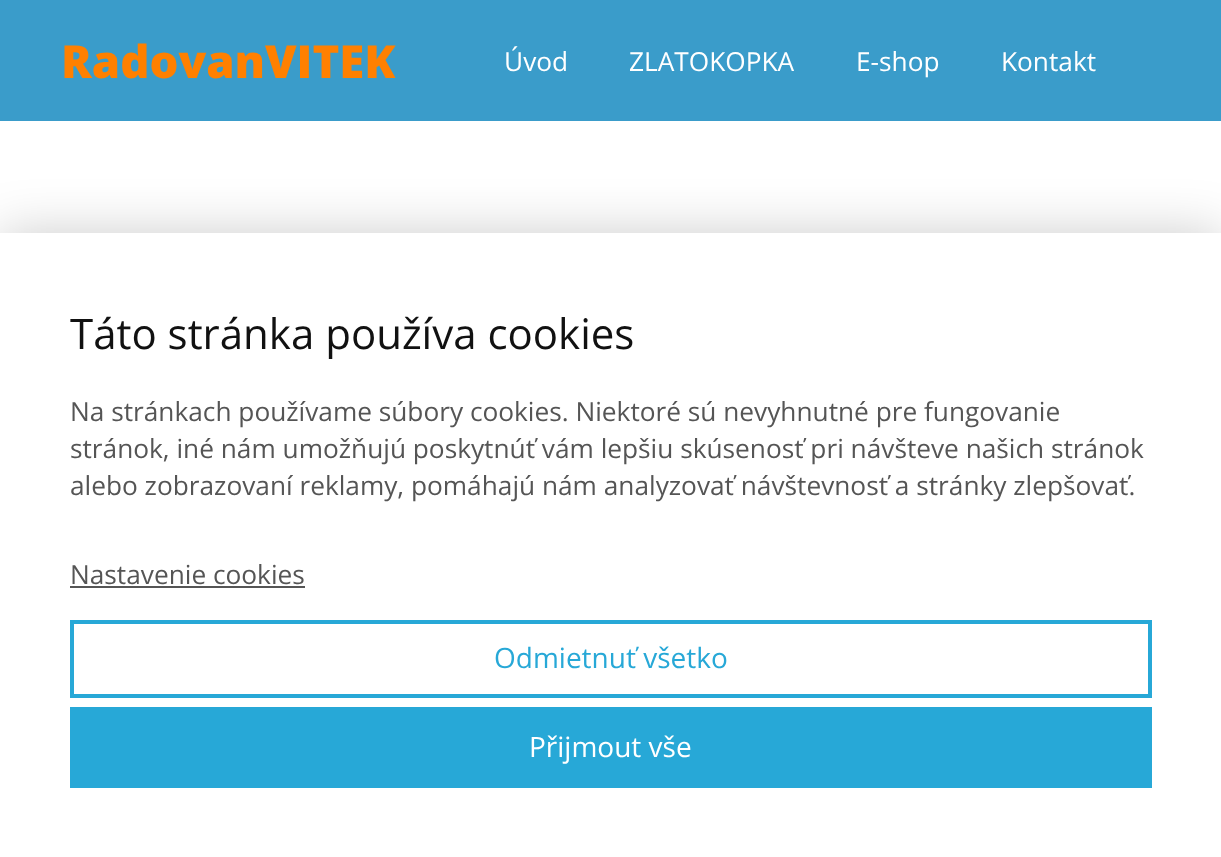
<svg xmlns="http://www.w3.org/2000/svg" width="1221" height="857">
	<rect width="100%" height="100%" fill="#FFFFFF" />
	<rect x="0" y="0" width="1221" height="121" fill="#3A9CCA" />
	<text x="61" y="78" font-family="Open Sans" font-size="45.5" font-weight="800" fill="#FF8000">RadovanVITEK</text>
	<g font-family="Open Sans" font-size="26.25" fill="#FFFFFF">
		<text x="504" y="71">Úvod</text>
		<text x="629" y="71">ZLATOKOPKA</text>
		<text x="856" y="71">E-shop</text>
		<text x="1001" y="71">Kontakt</text>
	</g>
	<rect x="0" y="233" width="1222" height="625" fill="#000000" fill-opacity="0.2" filter="blur(26px)" />
	<rect x="0" y="233" width="1221" height="624" fill="#FFFFFF" />
	<text x="70" y="349" font-family="Open Sans" font-size="42" fill="#111111">Táto stránka používa cookies</text>
	<g font-family="Open Sans" font-size="26.25" fill="#555555">
		<text x="70" y="421">Na stránkach používame súbory cookies. Niektoré sú nevyhnutné pre fungovanie</text>
		<text x="70" y="458">stránok, iné nám umožňujú poskytnúť vám lepšiu skúsenosť pri návšteve našich stránok</text>
		<text x="70" y="495">alebo zobrazovaní reklamy, pomáhajú nám analyzovať návštevnosť a stránky zlepšovať.</text>
		<text x="70" y="584">Nastavenie cookies</text>
	</g>
	<rect x="70" y="586" width="235" height="2" fill="#555555" />
	<rect x="72" y="622" width="1078" height="74" fill="none" stroke="#27A8D7" stroke-width="4" />
	<text x="494" y="668" font-family="Open Sans" font-size="28" fill="#27A8D7">Odmietnuť všetko</text>
	<rect x="70" y="707" width="1082" height="81" fill="#27A8D7" />
	<text x="529" y="757" font-family="Open Sans" font-size="28" fill="#FFFFFF">Přijmout vše</text>
</svg>
